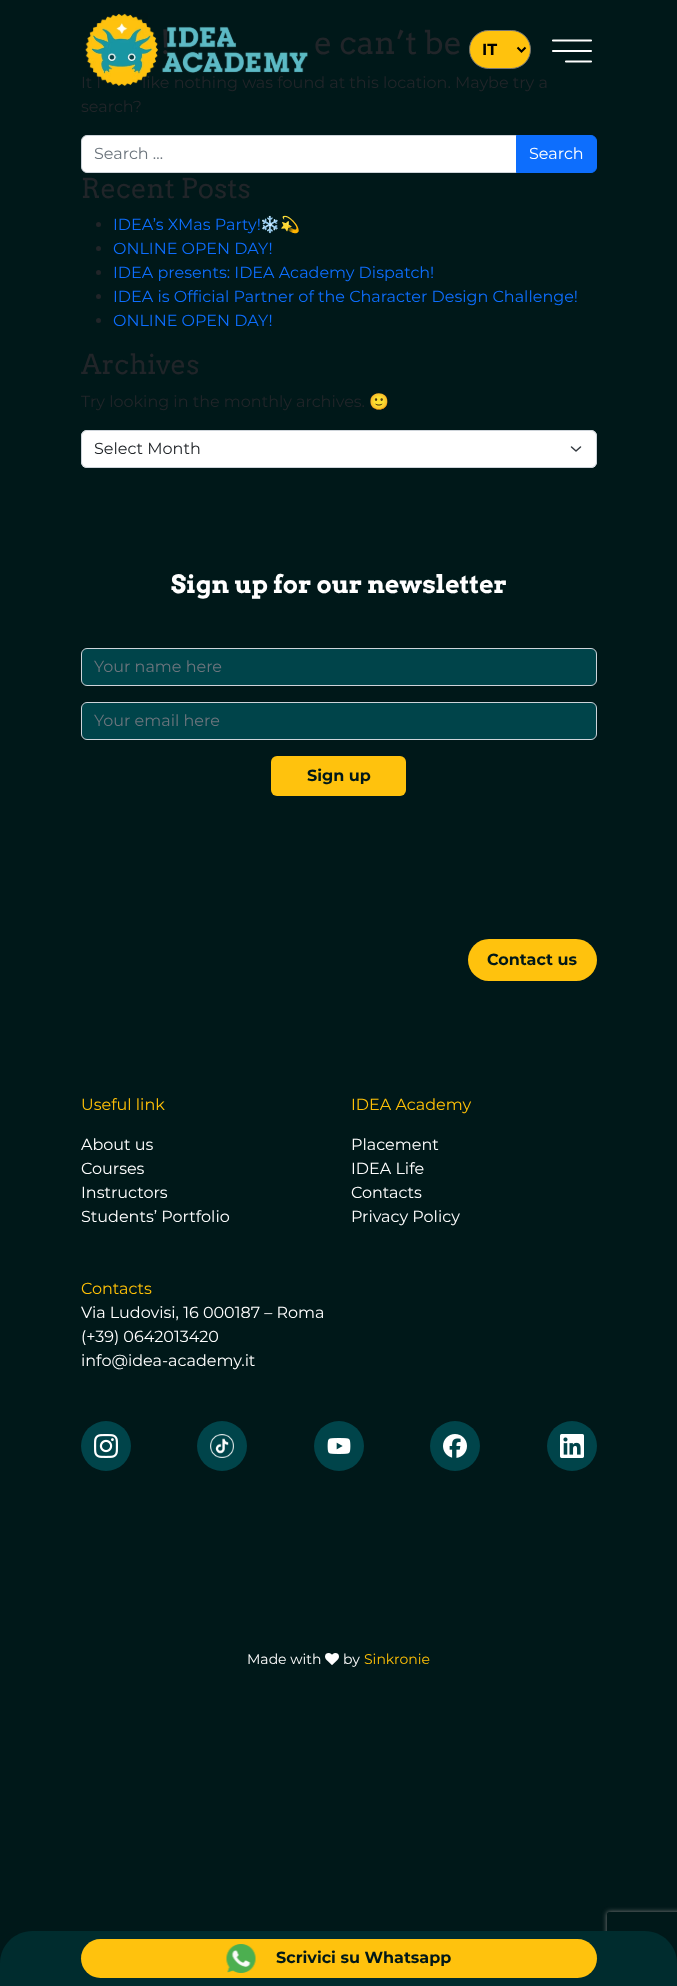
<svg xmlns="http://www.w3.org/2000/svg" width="677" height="1986">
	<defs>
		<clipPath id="clip1"><path d="M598 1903H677V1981H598ZM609 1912H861C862 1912 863 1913 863 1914V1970C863 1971 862 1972 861 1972H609C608 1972 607 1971 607 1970V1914C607 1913 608 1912 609 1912Z" clip-rule="evenodd" /></clipPath>
	</defs>
	<rect width="100%" height="100%" fill="#001819" />
	<g font-family="Arvo" font-size="32" fill="#212529">
		<text x="160" y="54">!</text>
		<text x="314" y="54">e can’t be</text>
	</g>
	<g font-family="Montserrat" font-size="16" fill="#212529">
		<text x="81" y="88">It l</text>
		<text x="142" y="88">like nothing was found at this location. Maybe try a</text>
		<text x="81" y="112">search?</text>
	</g>
	<path d="M87 135.5H516.5V172.5H87C84 172.5 81.5 170 81.5 167V141C81.5 138 84 135.5 87 135.5Z" fill="#FFFFFF" stroke="#CED4DA" />
	<text x="94" y="159" font-family="Montserrat" font-size="16" fill="#6C757D">Search …</text>
	<path d="M516.5 135.5H591C594 135.5 596.5 138 596.5 141V167C596.5 170 594 172.5 591 172.5H516.5Z" fill="#0D6EFD" stroke="#0D6EFD" />
	<text x="529" y="159" font-family="Montserrat" font-size="16" fill="#FFFFFF">Search</text>
	<text x="81" y="198" font-family="Arvo" font-size="27.25" fill="#212529">Recent Posts</text>
	<circle cx="98.5" cy="224.5" r="2.5" fill="#212529" />
	<text x="113" y="230" font-family="Montserrat" font-size="16" fill="#0D6EFD">IDEA’s XMas Party!</text>
	<text x="260" y="230" font-family="Noto Color Emoji" font-size="16" fill="#0D6EFD">❄️💫</text>
	<circle cx="98.5" cy="248.5" r="2.5" fill="#212529" />
	<text x="113" y="254" font-family="Montserrat" font-size="16" fill="#0D6EFD">ONLINE OPEN DAY!</text>
	<circle cx="98.5" cy="272.5" r="2.5" fill="#212529" />
	<text x="113" y="278" font-family="Montserrat" font-size="16" fill="#0D6EFD">IDEA presents: IDEA Academy Dispatch!</text>
	<circle cx="98.5" cy="296.5" r="2.5" fill="#212529" />
	<text x="113" y="302" font-family="Montserrat" font-size="16" fill="#0D6EFD">IDEA is Official Partner of the Character Design Challenge!</text>
	<circle cx="98.5" cy="320.5" r="2.5" fill="#212529" />
	<text x="113" y="326" font-family="Montserrat" font-size="16" fill="#0D6EFD">ONLINE OPEN DAY!</text>
	<text x="81" y="374" font-family="Arvo" font-size="27.25" fill="#212529">Archives</text>
	<text x="81" y="407" font-family="Montserrat" font-size="16" fill="#212529">Try looking in the monthly archives.</text>
	<text x="369" y="407" font-family="Noto Color Emoji" font-size="16" fill="#212529">🙂</text>
	<rect x="81" y="430" width="516" height="38" rx="6" fill="#FFFFFF" />
	<path d="M571.5 447L576 451L580.5 447" fill="none" stroke="#343A40" stroke-width="1.5" stroke-linecap="round" stroke-linejoin="round" />
	<rect x="81.5" y="430.5" width="515" height="37" rx="5.5" fill="none" stroke="#CED4DA" />
	<text x="94" y="454" font-family="Montserrat" font-size="16" fill="#212529">Select Month</text>
	<image x="85" y="13" width="223" height="73" href="assets/img1.png" />
	<rect x="469.5" y="30.5" width="61" height="38" rx="19" fill="#FFC20D" stroke="#767676" />
	<path d="M517.5 47.5L521.5 51.5L525.5 47.5" fill="none" stroke="#000000" stroke-width="2" />
	<text x="482" y="55" font-family="Montserrat" font-size="16" font-weight="700" fill="#000000">IT</text>
	<path d="M553 51H591M553 40.5H591M566 61.5H591" fill="none" stroke="#FFFFFF" stroke-width="2.1" stroke-linecap="round" stroke-linejoin="round" />
	<text x="171" y="593" font-family="Arvo" font-size="24.9" font-weight="700" fill="#FFFFFF">Sign up for our newsletter</text>
	<rect x="81.5" y="648.5" width="515" height="37" rx="5.5" fill="#00444A" stroke="#CED4DA" />
	<text x="94" y="672" font-family="Montserrat" font-size="16" fill="#6C757D">Your name here</text>
	<rect x="81.5" y="702.5" width="515" height="37" rx="5.5" fill="#00444A" stroke="#CED4DA" />
	<text x="94" y="726" font-family="Montserrat" font-size="16" fill="#6C757D">Your email here</text>
	<rect x="271" y="756" width="135" height="40" rx="6" fill="#FFC20D" />
	<text x="307" y="781" font-family="Montserrat" font-size="16" font-weight="700" fill="#001819">Sign up</text>
	<rect x="468" y="939" width="129" height="42" rx="21" fill="#FFC20D" />
	<text x="487" y="965" font-family="Montserrat" font-size="16" font-weight="700" fill="#001819">Contact us</text>
	<text x="81" y="1110" font-family="Montserrat" font-size="16" fill="#FFC107">Useful link</text>
	<g font-family="Montserrat" font-size="16" fill="#FFFFFF">
		<text x="81" y="1150">About us</text>
		<text x="81" y="1174">Courses</text>
		<text x="81" y="1198">Instructors</text>
		<text x="81" y="1222">Students’ Portfolio</text>
	</g>
	<text x="351" y="1110" font-family="Montserrat" font-size="16" fill="#FFC107">IDEA Academy</text>
	<g font-family="Montserrat" font-size="16" fill="#FFFFFF">
		<text x="351" y="1150">Placement</text>
		<text x="351" y="1174">IDEA Life</text>
		<text x="351" y="1198">Contacts</text>
		<text x="351" y="1222">Privacy Policy</text>
	</g>
	<text x="81" y="1294" font-family="Montserrat" font-size="16" fill="#FFC107">Contacts</text>
	<g font-family="Montserrat" font-size="16" fill="#FFFFFF">
		<text x="81" y="1318">Via Ludovisi, 16 000187 – Roma</text>
		<text x="81" y="1342">(+39) 0642013420</text>
		<text x="81" y="1366">info@idea-academy.it</text>
	</g>
	<circle cx="106" cy="1446" r="25" fill="#00444A" />
	<image x="94" y="1434" width="24" height="24" href="assets/img2.png" />
	<circle cx="222" cy="1446" r="25" fill="#00444A" />
	<image x="210" y="1434" width="24" height="24" href="assets/img3.png" />
	<circle cx="339" cy="1446" r="25" fill="#00444A" />
	<image x="327" y="1438" width="24" height="16" href="assets/img4.png" />
	<circle cx="455" cy="1446" r="25" fill="#00444A" />
	<image x="443" y="1434" width="24" height="24" href="assets/img5.png" />
	<circle cx="572" cy="1446" r="25" fill="#00444A" />
	<image x="560" y="1434" width="24" height="24" href="assets/img6.png" />
	<text x="247" y="1664" font-family="Montserrat" font-size="14" fill="#FFFFFF">Made with</text>
	<image x="325" y="1653" width="14" height="12" href="assets/img7.png" />
	<text x="343" y="1664" font-family="Montserrat" font-size="14" fill="#FFFFFF">by</text>
	<text x="364" y="1664" font-family="Montserrat" font-size="14" fill="#FFC107">Sinkronie</text>
	<g clip-path="url(#clip1)">
		<rect x="607" y="1912" width="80" height="60" rx="2" fill="#808080" filter="blur(2.5px)" />
	</g>
	<path d="M32 1931H645C662.5 1931 677 1945.5 677 1963V1986H0V1963C0 1945.5 14.5 1931 32 1931Z" fill="#002C2E" />
	<rect x="81" y="1939" width="516" height="39" rx="19.5" fill="#FFC20D" />
	<image x="226" y="1944" width="30" height="29" href="assets/img8.png" />
	<text x="276" y="1963" font-family="Montserrat" font-size="16" font-weight="700" fill="#001819">Scrivici su Whatsapp</text>
</svg>
